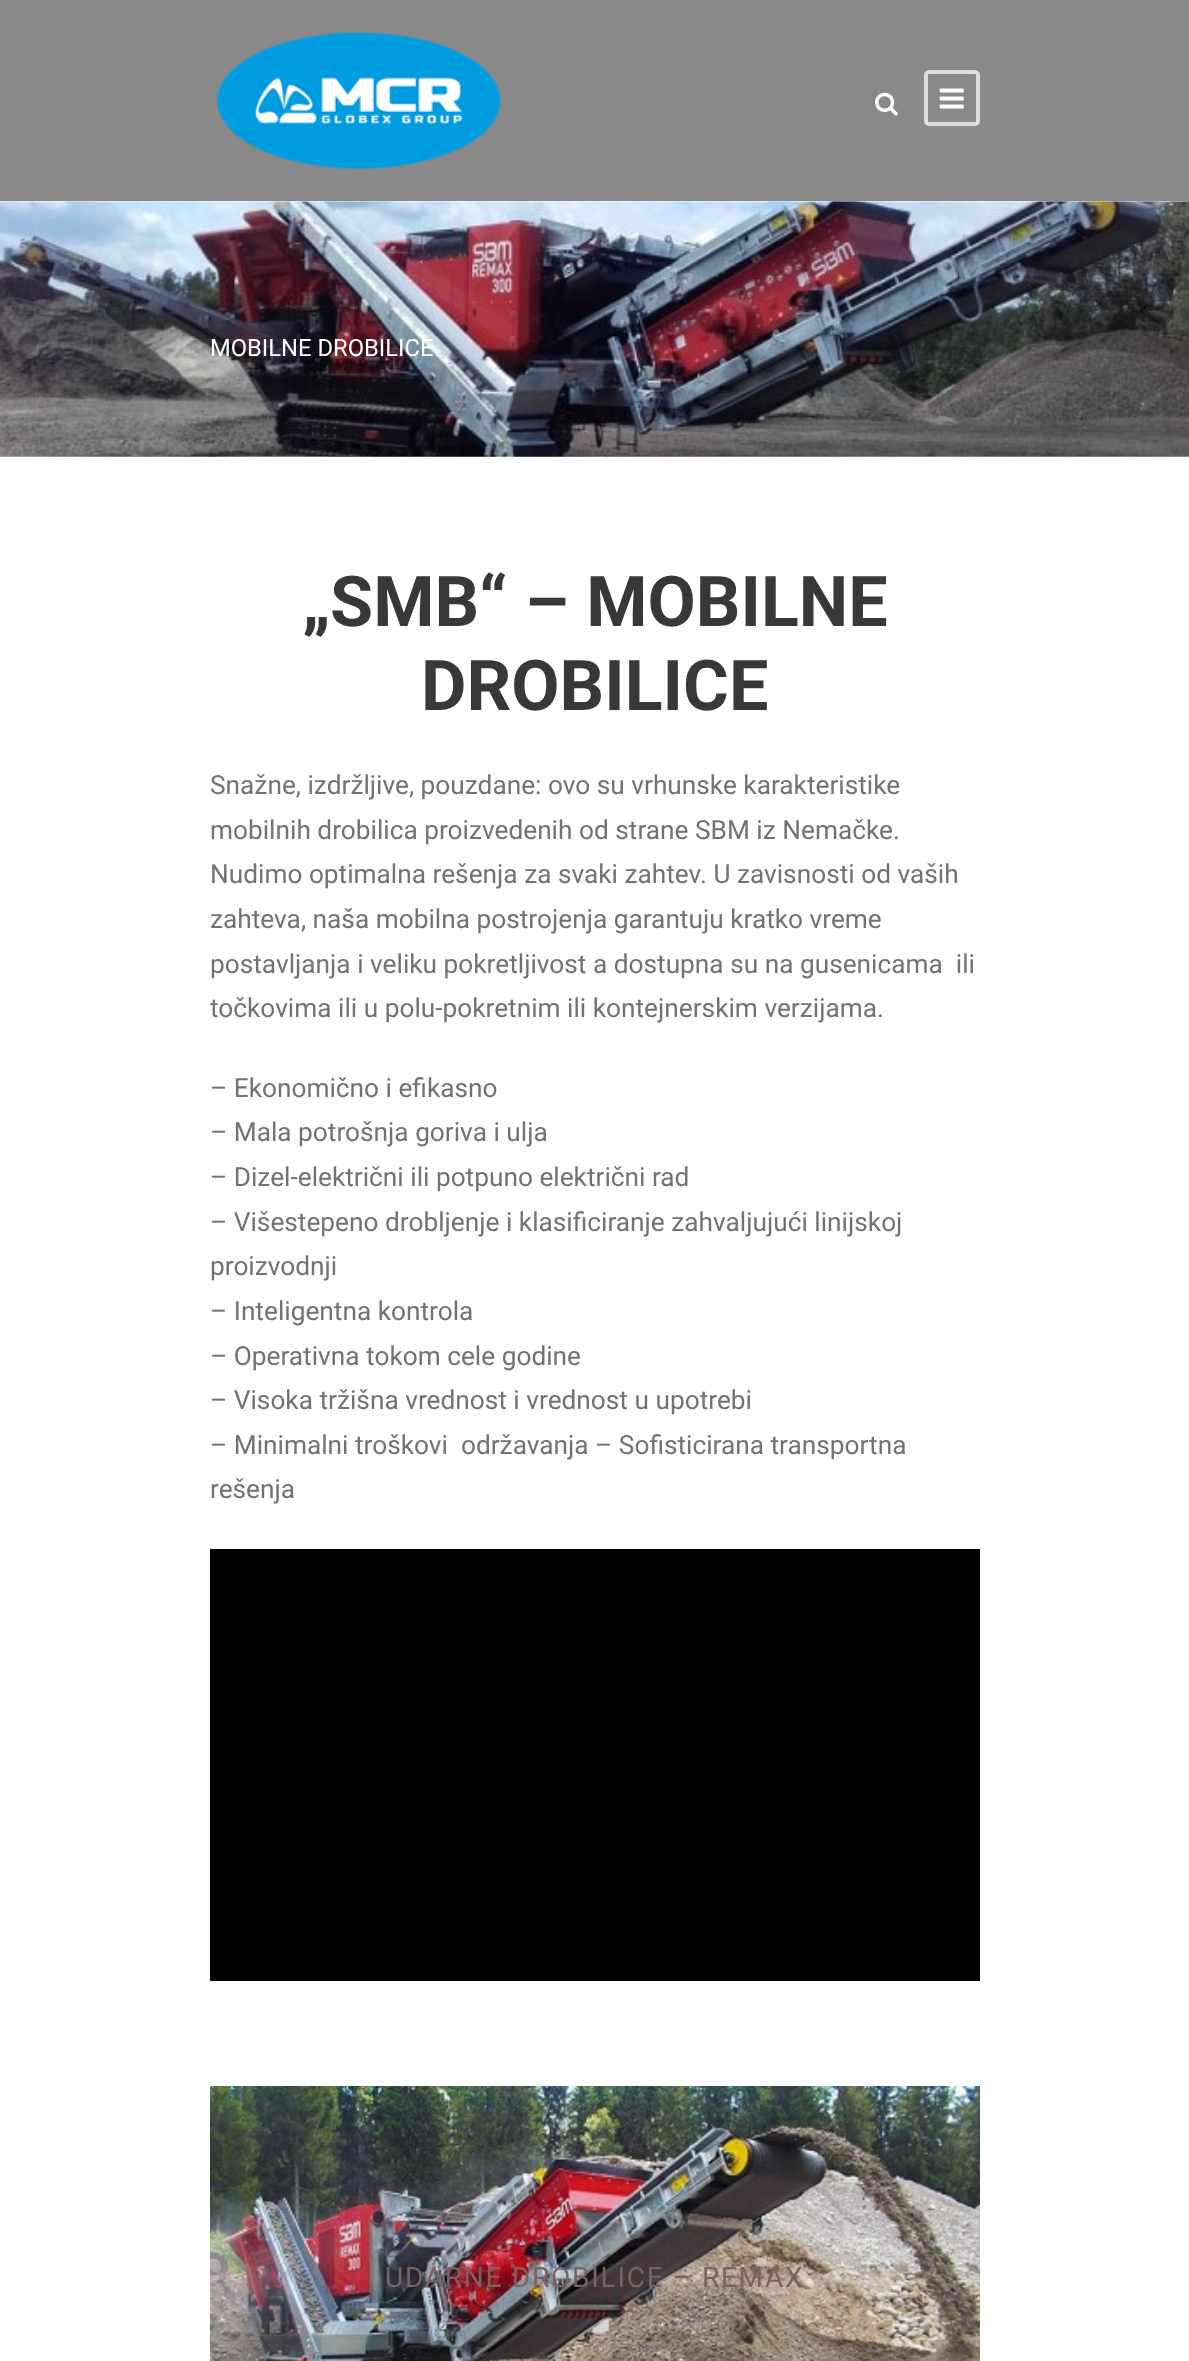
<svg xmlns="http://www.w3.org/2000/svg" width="1189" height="2361">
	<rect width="100%" height="100%" fill="#898989" />
	<image x="216" y="32" width="286" height="137" href="assets/img1.png" />
	<image x="875" y="92" width="23" height="24" href="assets/img2.png" />
	<rect x="926" y="72" width="52" height="52" rx="3" fill="none" stroke="#DDDDDD" stroke-width="4" />
	<image x="939" y="88" width="25" height="21" href="assets/img3.png" />
	<rect x="0" y="201" width="1189" height="2160" fill="#FFFFFF" />
	<image x="0" y="201" width="1189" height="256" href="assets/img4.png" />
	<text x="210" y="356" font-family="Roboto" font-size="23.75" fill="#FFFFFF">MOBILNE DROBILICE</text>
	<g font-family="Roboto" font-size="70" font-weight="700" fill="#383838">
		<text x="302" y="626">„SMB“ – MOBILNE</text>
		<text x="421" y="710">DROBILICE</text>
	</g>
	<g font-family="Roboto" font-size="26.25" fill="#727272">
		<text x="210" y="794">Snažne, izdržljive, pouzdane: ovo su vrhunske karakteristike</text>
		<text x="210" y="839">mobilnih drobilica proizvedenih od strane SBM iz Nemačke.</text>
		<text x="210" y="883">Nudimo optimalna rešenja za svaki zahtev. U zavisnosti od vaših</text>
		<text x="210" y="928">zahteva, naša mobilna postrojenja garantuju kratko vreme</text>
		<text x="210" y="973" xml:space="preserve">postavljanja i veliku pokretljivost a dostupna su na gusenicama  ili</text>
		<text x="210" y="1017">točkovima ili u polu-pokretnim ili kontejnerskim verzijama.</text>
		<text x="210" y="1097">– Ekonomično i efikasno</text>
		<text x="210" y="1141">– Mala potrošnja goriva i ulja</text>
		<text x="210" y="1186">– Dizel-električni ili potpuno električni rad</text>
		<text x="210" y="1231">– Višestepeno drobljenje i klasificiranje zahvaljujući linijskoj</text>
		<text x="210" y="1275">proizvodnji</text>
		<text x="210" y="1320">– Inteligentna kontrola</text>
		<text x="210" y="1365">– Operativna tokom cele godine</text>
		<text x="210" y="1409">– Visoka tržišna vrednost i vrednost u upotrebi</text>
		<text x="210" y="1454" xml:space="preserve">– Minimalni troškovi  održavanja – Sofisticirana transportna</text>
		<text x="210" y="1498">rešenja</text>
	</g>
	<rect x="210" y="1549" width="770" height="432" fill="#000000" />
	<image x="210" y="2086" width="770" height="275" href="assets/img5.png" />
	<text x="385" y="2287" font-family="Roboto" font-size="28" letter-spacing="1.75" fill="#7A6162">UDARNE DROBILICE – REMAX</text>
</svg>
